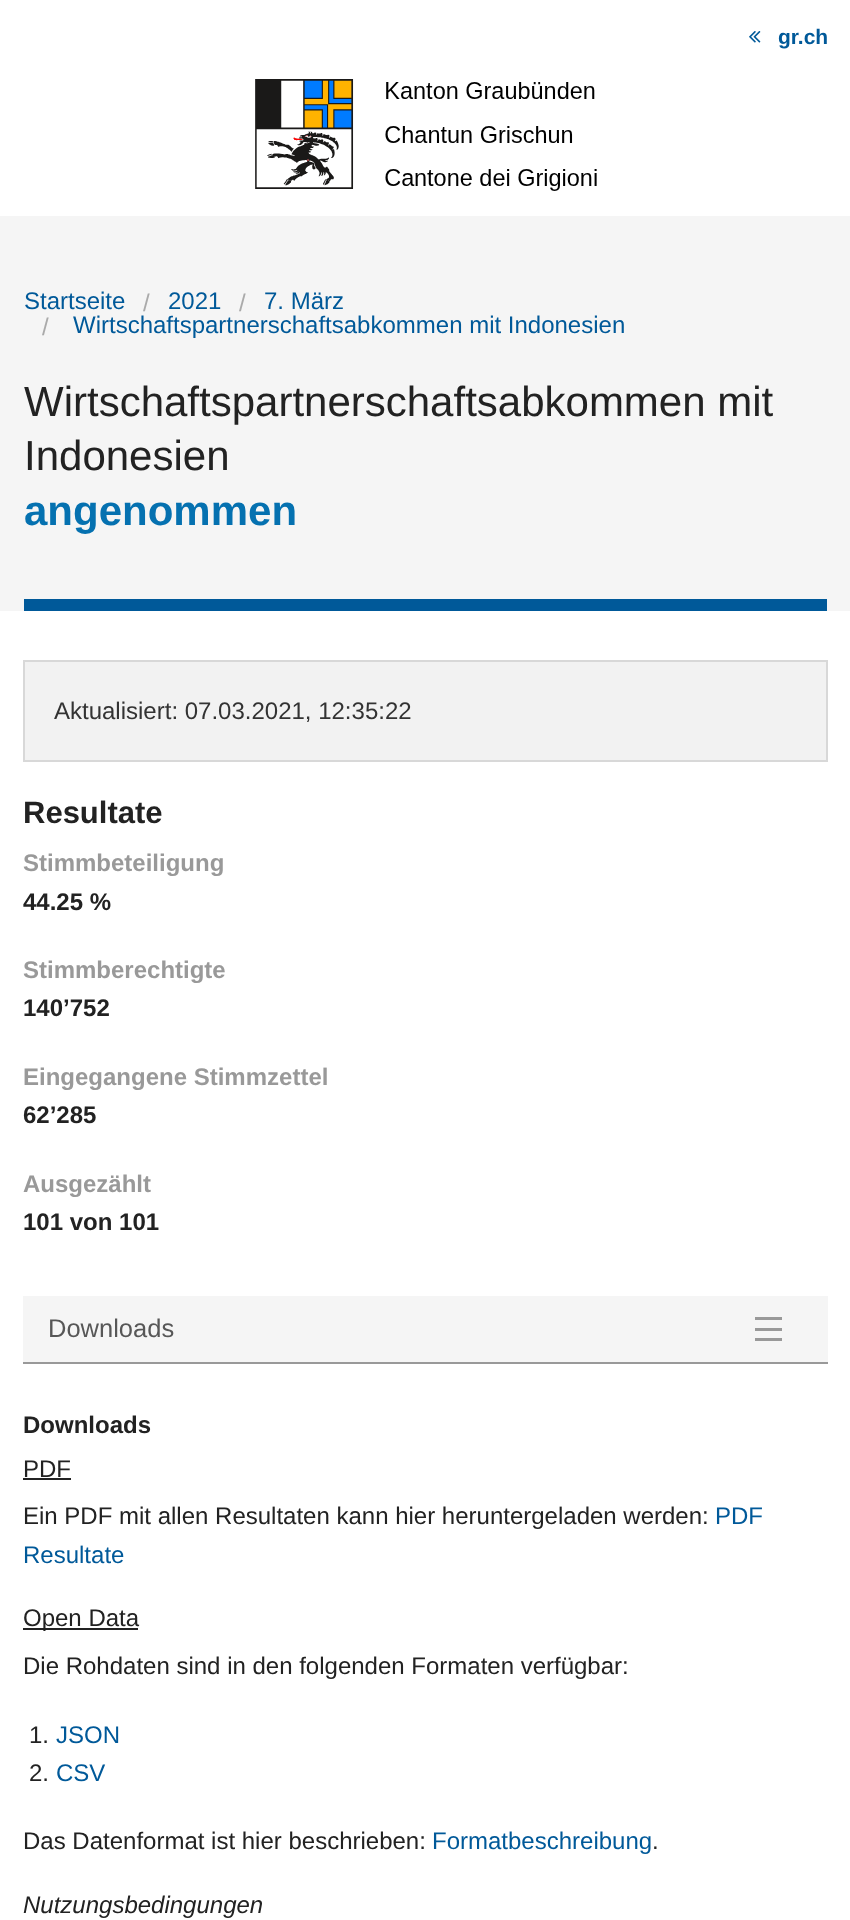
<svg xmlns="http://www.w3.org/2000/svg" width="850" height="1920">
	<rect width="100%" height="100%" fill="#FFFFFF" />
	<image x="749" y="31" width="12" height="12" href="assets/img1.png" />
	<text x="778" y="44" font-family="Liberation Sans" font-size="21" font-weight="700" fill="#005999">gr.ch</text>
	<image x="255" y="79" width="342" height="112" href="assets/img2.png" />
	<rect x="0" y="216" width="850" height="395" fill="#F5F5F5" />
	<text x="24" y="309" font-family="Liberation Sans" font-size="24" fill="#005999">Startseite</text>
	<text x="143" y="311" font-family="Liberation Sans" font-size="24" fill="#AAAAAA">/</text>
	<text x="168" y="309" font-family="Liberation Sans" font-size="24" fill="#005999">2021</text>
	<text x="239" y="311" font-family="Liberation Sans" font-size="24" fill="#AAAAAA">/</text>
	<text x="264" y="309" font-family="Liberation Sans" font-size="24" fill="#005999">7. März</text>
	<text x="42" y="335" font-family="Liberation Sans" font-size="24" fill="#AAAAAA">/</text>
	<text x="73" y="333" font-family="Liberation Sans" font-size="24" fill="#005999">Wirtschaftspartnerschaftsabkommen mit Indonesien</text>
	<g font-family="Liberation Sans" font-size="42" fill="#222222">
		<text x="24" y="416">Wirtschaftspartnerschaftsabkommen mit</text>
		<text x="24" y="470">Indonesien</text>
	</g>
	<text x="24" y="525" font-family="Liberation Sans" font-size="42" font-weight="700" fill="#0571B0">angenommen</text>
	<rect x="24" y="599" width="803" height="12" fill="#005999" />
	<rect x="24" y="661" width="803" height="100" fill="#F2F2F2" stroke="#D8D8D8" stroke-width="2" />
	<text x="54" y="719" font-family="Liberation Sans" font-size="24" fill="#333333">Aktualisiert: 07.03.2021, 12:35:22</text>
	<text x="23" y="823" font-family="Liberation Sans" font-size="31" font-weight="700" fill="#222222">Resultate</text>
	<text x="23" y="871" font-family="Liberation Sans" font-size="24" font-weight="700" fill="#999999">Stimmbeteiligung</text>
	<text x="23" y="910" font-family="Liberation Sans" font-size="24" font-weight="700" fill="#222222">44.25 %</text>
	<text x="23" y="978" font-family="Liberation Sans" font-size="24" font-weight="700" fill="#999999">Stimmberechtigte</text>
	<text x="23" y="1016" font-family="Liberation Sans" font-size="24" font-weight="700" fill="#222222">140’752</text>
	<text x="23" y="1085" font-family="Liberation Sans" font-size="24" font-weight="700" fill="#999999">Eingegangene Stimmzettel</text>
	<text x="23" y="1123" font-family="Liberation Sans" font-size="24" font-weight="700" fill="#222222">62’285</text>
	<text x="23" y="1192" font-family="Liberation Sans" font-size="24" font-weight="700" fill="#999999">Ausgezählt</text>
	<text x="23" y="1230" font-family="Liberation Sans" font-size="24" font-weight="700" fill="#222222">101 von 101</text>
	<rect x="23" y="1362" width="805" height="2" fill="#999999" />
	<rect x="23" y="1296" width="805" height="66" fill="#F5F5F5" />
	<text x="48" y="1337" font-family="Liberation Sans" font-size="25.5" fill="#575757">Downloads</text>
	<rect x="755" y="1338" width="27" height="3" fill="#999999" />
	<rect x="755" y="1328" width="27" height="3" fill="#999999" />
	<rect x="755" y="1317" width="27" height="3" fill="#999999" />
	<text x="23" y="1433" font-family="Liberation Sans" font-size="24" font-weight="700" fill="#222222">Downloads</text>
	<text x="23" y="1477" font-family="Liberation Sans" font-size="24" fill="#222222">PDF</text>
	<rect x="23" y="1478" width="48" height="2" fill="#222222" />
	<text x="23" y="1524" font-family="Liberation Sans" font-size="24" fill="#222222">Ein PDF mit allen Resultaten kann hier heruntergeladen werden:</text>
	<g font-family="Liberation Sans" font-size="24" fill="#005999">
		<text x="715" y="1524">PDF</text>
		<text x="23" y="1563">Resultate</text>
	</g>
	<rect x="23" y="1628" width="115" height="2" fill="#222222" />
	<g font-family="Liberation Sans" font-size="24" fill="#222222">
		<text x="23" y="1626">Open Data</text>
		<text x="23" y="1674">Die Rohdaten sind in den folgenden Formaten verfügbar:</text>
		<text x="29" y="1743">1.</text>
	</g>
	<text x="56" y="1743" font-family="Liberation Sans" font-size="24" fill="#005999">JSON</text>
	<text x="29" y="1781" font-family="Liberation Sans" font-size="24" fill="#222222">2.</text>
	<text x="56" y="1781" font-family="Liberation Sans" font-size="24" fill="#005999">CSV</text>
	<text x="23" y="1849" font-family="Liberation Sans" font-size="24" fill="#222222">Das Datenformat ist hier beschrieben:</text>
	<text x="432" y="1849" font-family="Liberation Sans" font-size="24" fill="#005999">Formatbeschreibung</text>
	<text x="652" y="1849" font-family="Liberation Sans" font-size="24" fill="#222222">.</text>
	<text x="23" y="1913" font-family="Liberation Sans" font-size="24" font-style="italic" fill="#222222">Nutzungsbedingungen</text>
</svg>
